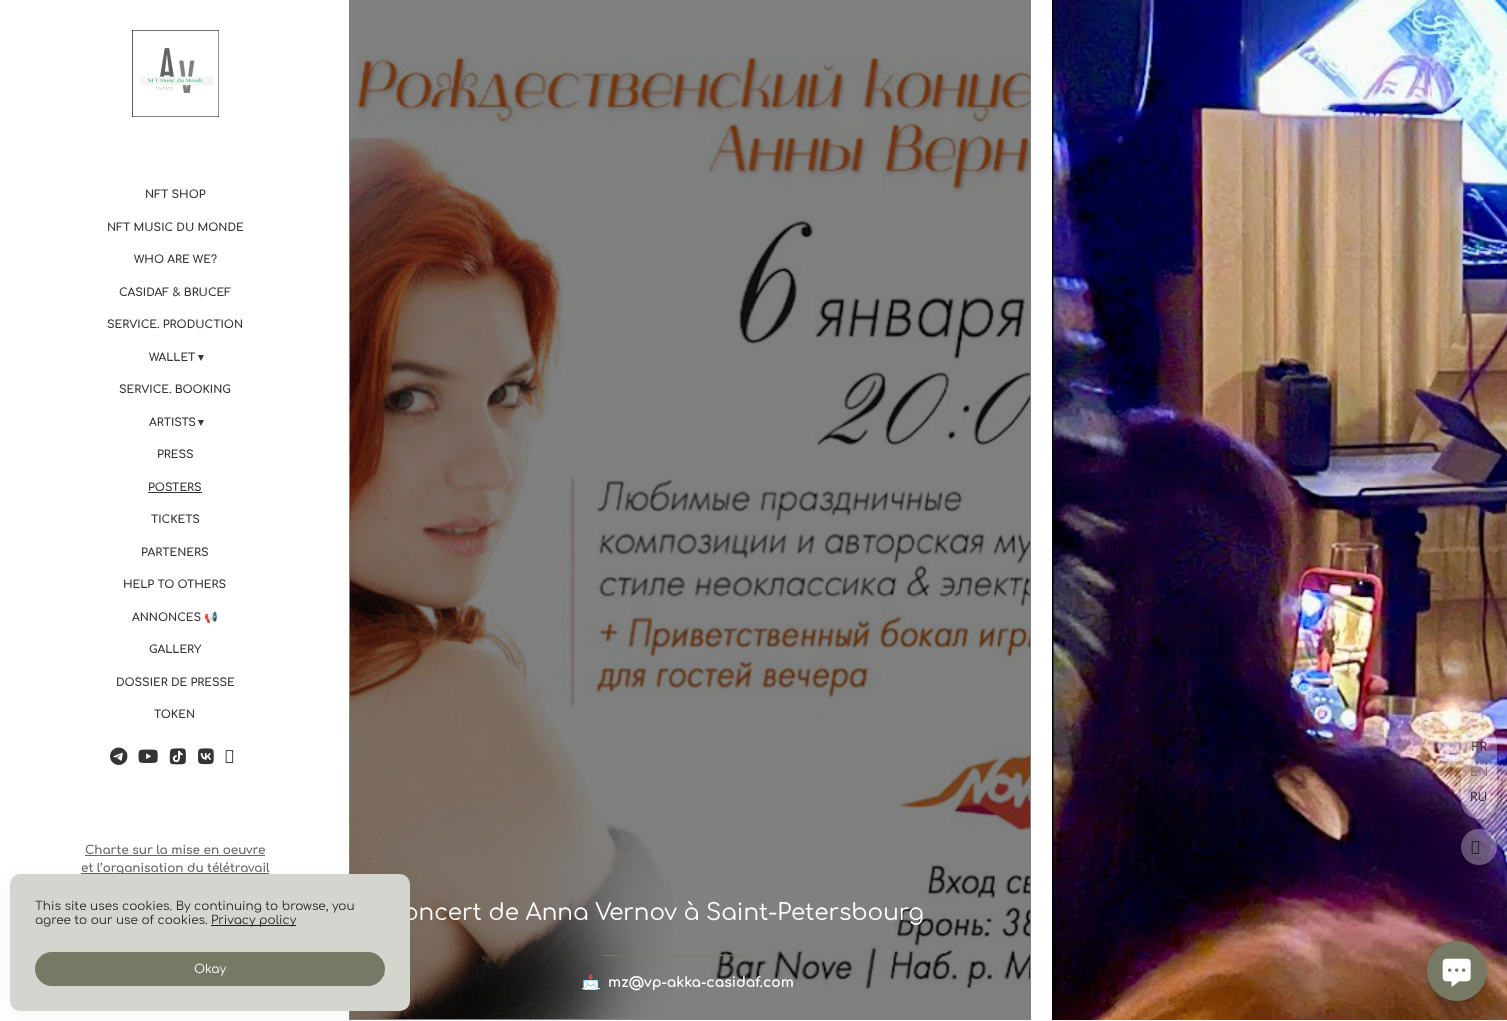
<svg xmlns="http://www.w3.org/2000/svg" width="1507" height="1021">
	<defs>
		<clipPath id="clip1"><path d="M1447 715H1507V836H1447ZM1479 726C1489 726 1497 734 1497 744V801C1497 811 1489 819 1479 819C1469 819 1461 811 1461 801V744C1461 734 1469 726 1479 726Z" clip-rule="evenodd" /></clipPath>
		<clipPath id="clip2"><path d="M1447 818H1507V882H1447ZM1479 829C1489 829 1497 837 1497 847C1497 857 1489 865 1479 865C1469 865 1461 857 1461 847C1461 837 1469 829 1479 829Z" clip-rule="evenodd" /></clipPath>
	</defs>
	<rect width="100%" height="100%" fill="#FFFFFF" />
	<rect x="349" y="0" width="682" height="1020" fill="#808080" />
	<image x="132" y="30" width="87" height="87" href="assets/img1.png" />
	<g font-family="Comfortaa" font-size="11" font-weight="700" fill="#353535">
		<text x="145" y="198">NFT SHOP</text>
		<text x="107" y="231">NFT MUSIC DU MONDE</text>
		<text x="134" y="263">WHO ARE WE?</text>
		<text x="119" y="296">CASIDAF &amp; BRUCEF</text>
		<text x="107" y="328">SERVICE. PRODUCTION</text>
		<text x="149" y="361">WALLET</text>
	</g>
	<text x="198" y="361" font-family="DejaVu Sans" font-size="11" font-weight="700" fill="#353535">▾</text>
	<g font-family="Comfortaa" font-size="11" font-weight="700" fill="#353535">
		<text x="119" y="393">SERVICE. BOOKING</text>
		<text x="149" y="426">ARTISTS</text>
	</g>
	<text x="198" y="426" font-family="DejaVu Sans" font-size="11" font-weight="700" fill="#353535">▾</text>
	<g font-family="Comfortaa" font-size="11" font-weight="700" fill="#353535">
		<text x="157" y="458">PRESS</text>
		<text x="148" y="491">POSTERS</text>
	</g>
	<rect x="148" y="492" width="54" height="1" fill="#353535" />
	<g font-family="Comfortaa" font-size="11" font-weight="700" fill="#353535">
		<text x="151" y="523">TICKETS</text>
		<text x="141" y="556">PARTENERS</text>
		<text x="123" y="588">HELP TO OTHERS</text>
		<text x="132" y="621">ANNONCES</text>
	</g>
	<text x="204" y="621" font-family="Noto Color Emoji" font-size="11" font-weight="700" fill="#353535">📢</text>
	<g font-family="Comfortaa" font-size="11" font-weight="700" fill="#353535">
		<text x="149" y="653">GALLERY</text>
		<text x="116" y="686">DOSSIER DE PRESSE</text>
		<text x="154" y="718">TOKEN</text>
	</g>
	<image x="110" y="747" width="18" height="18" href="assets/img2.png" />
	<image x="138" y="749" width="20" height="14" href="assets/img3.png" />
	<image x="169" y="748" width="17" height="17" href="assets/img4.png" />
	<image x="198" y="748" width="16" height="17" href="assets/img5.png" />
	<image x="225" y="750" width="9" height="13" href="assets/img6.png" />
	<text x="85" y="854" font-family="Comfortaa" font-size="12" font-weight="700" fill="#676767">Charte sur la mise en oeuvre</text>
	<rect x="85" y="855" width="180" height="1" fill="#676767" />
	<rect x="81" y="873" width="188" height="1" fill="#676767" />
	<text x="81" y="872" font-family="Comfortaa" font-size="12" font-weight="700" fill="#676767">et l’organisation du télétravail</text>
	<image x="350" y="48" width="680" height="971" href="assets/img7.png" />
	<text x="403" y="920" font-family="Comfortaa" font-size="23" fill="#FFFFFF">oncert de Anna Vernov à Saint-Petersbourg</text>
	<rect x="602" y="955" width="148" height="1" fill="#767963" />
	<rect x="582" y="988" width="18" height="1" fill="#FFFFFF" />
	<text x="582" y="987" font-family="Noto Color Emoji" font-size="14" font-weight="700" fill="#FFFFFF">📩</text>
	<text x="608" y="987" font-family="Comfortaa" font-size="14" font-weight="700" fill="#FFFFFF">mz@vp-akka-casidaf.com</text>
	<image x="1052" y="0" width="455" height="1020" href="assets/img8.png" />
	<g clip-path="url(#clip1)">
		<rect x="1460" y="728" width="38" height="95" rx="19" fill="#000000" fill-opacity="0.15" filter="blur(4px)" />
	</g>
	<rect x="1461" y="726" width="36" height="93" rx="18" fill="#FFFFFF" fill-opacity="0.3" />
	<text x="1472" y="751" font-family="Comfortaa" font-size="12" fill="#1E1E1E">FR</text>
	<text x="1470" y="776" font-family="Comfortaa" font-size="12" fill="#806D72">EN</text>
	<text x="1470" y="801" font-family="Comfortaa" font-size="12" fill="#1E1E1E">RU</text>
	<g clip-path="url(#clip2)">
		<rect x="1460" y="831" width="38" height="38" rx="19" fill="#000000" fill-opacity="0.15" filter="blur(4px)" />
	</g>
	<circle cx="1479" cy="847" r="18" fill="#FFFFFF" fill-opacity="0.3" />
	<image x="1471" y="841" width="9" height="13" href="assets/img9.png" />
	<rect x="10" y="879" width="400" height="137" rx="10" fill="#000000" fill-opacity="0.04" filter="blur(10px)" />
	<rect x="10" y="874" width="400" height="137" rx="10" fill="#D5D5CF" />
	<g font-family="Comfortaa" font-size="12" fill="#1E1E1E">
		<text x="35" y="910">This site uses cookies. By continuing to browse, you</text>
		<text x="35" y="924">agree to our use of cookies.</text>
	</g>
	<rect x="211" y="925" width="85" height="1" fill="#1E1E1E" />
	<text x="211" y="924" font-family="Comfortaa" font-size="12" fill="#1E1E1E">Privacy policy</text>
	<rect x="35" y="952" width="350" height="34" rx="17" fill="#767963" />
	<text x="194" y="973" font-family="Comfortaa" font-size="12" fill="#FFFFFF">Okay</text>
	<rect x="1426" y="943" width="62" height="62" rx="31" fill="#000000" fill-opacity="0.15" filter="blur(4px)" />
	<circle cx="1457" cy="971" r="30" fill="#767963" />
	<image x="1442" y="958" width="29" height="29" href="assets/img10.png" />
</svg>
